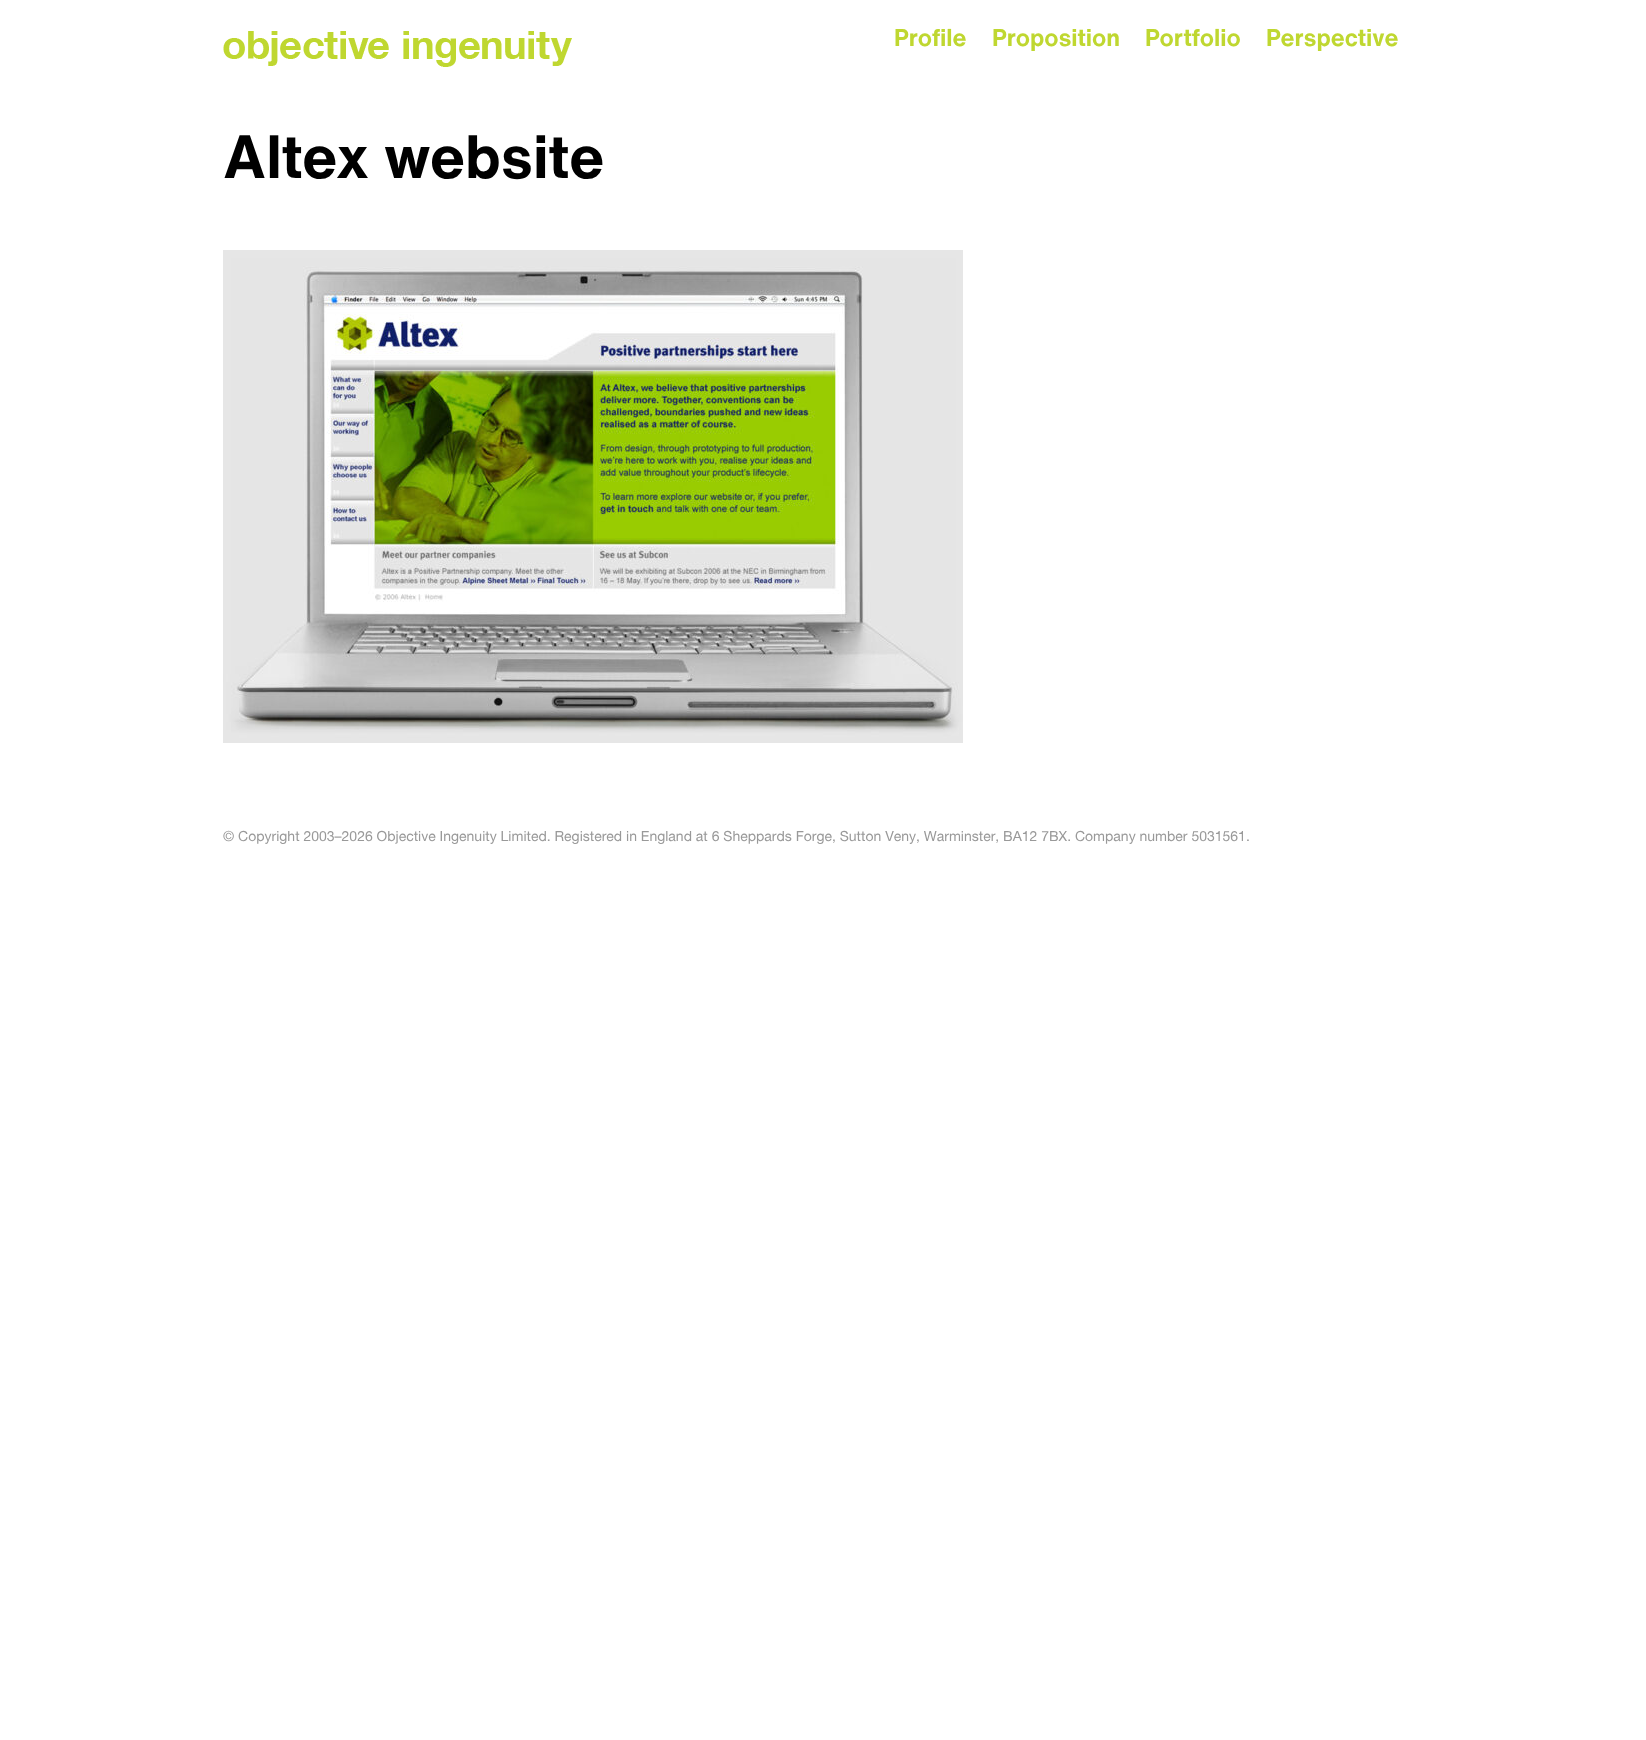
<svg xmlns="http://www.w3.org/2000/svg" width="1646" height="1740">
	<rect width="100%" height="100%" fill="#FFFFFF" />
	<image x="223" y="31" width="349" height="36" href="assets/img1.png" />
	<g font-family="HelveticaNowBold" font-size="24" fill="#BFD730">
		<text x="894" y="46">Profile</text>
		<text x="992" y="46">Proposition</text>
		<text x="1145" y="46">Portfolio</text>
		<text x="1266" y="46">Perspective</text>
	</g>
	<text x="223" y="178" font-family="HelveticaNowBold" font-size="60" fill="#000000">Altex website</text>
	<image x="223" y="250" width="740" height="493" href="assets/img2.png" />
	<text x="223" y="841" font-family="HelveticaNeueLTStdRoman" font-size="14" fill="#999999">© Copyright 2003–2026 Objective Ingenuity Limited. Registered in England at 6 Sheppards Forge, Sutton Veny, Warminster, BA12 7BX. Company number 5031561.</text>
</svg>
